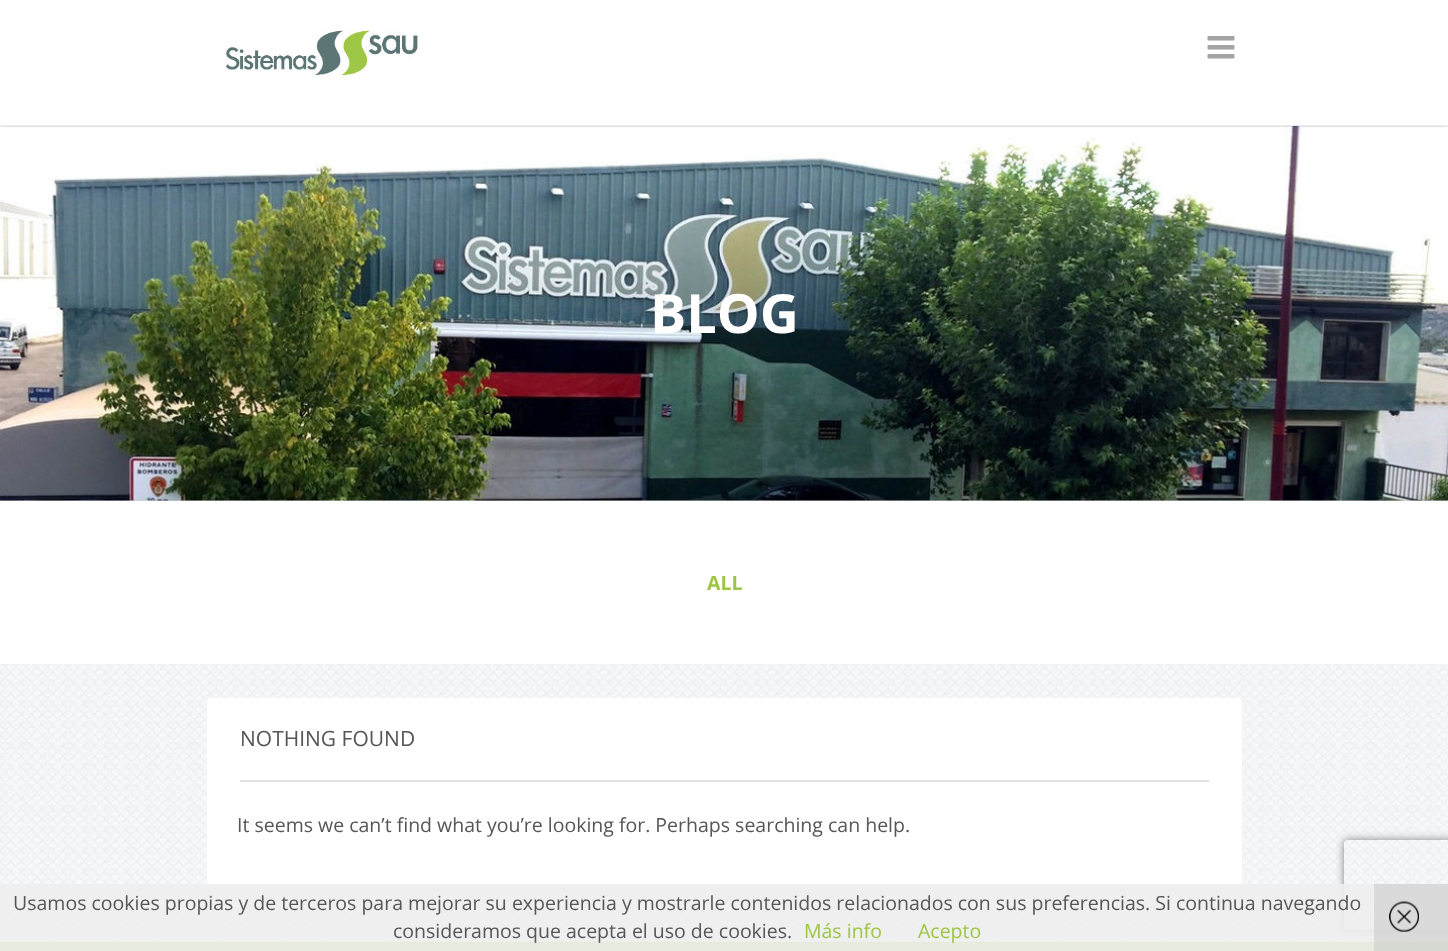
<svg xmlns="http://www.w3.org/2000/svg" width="1448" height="951">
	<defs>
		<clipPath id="clip1"><path d="M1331 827H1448V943H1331ZM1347 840H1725C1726.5 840 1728 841.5 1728 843V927C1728 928.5 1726.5 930 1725 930H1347C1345.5 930 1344 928.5 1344 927V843C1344 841.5 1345.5 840 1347 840Z" clip-rule="evenodd" /></clipPath>
	</defs>
	<rect width="100%" height="100%" fill="#FFFFFF" />
	<rect x="0" y="500" width="1448" height="1" fill="#CCCCCC" />
	<image x="0" y="126" width="1448" height="375" href="assets/img3.png" />
	<rect x="3" y="-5" width="1443" height="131" fill="#000000" fill-opacity="0.08" filter="blur(1.5px)" />
	<rect x="1" y="0" width="1447" height="126" fill="#FFFFFF" />
	<rect x="0" y="125" width="1448" height="2" fill="#000000" fill-opacity="0.08" />
	<image x="226" y="30" width="192" height="46" href="assets/img1.png" />
	<image x="1207" y="36" width="28" height="23" href="assets/img2.png" />
	<text x="650" y="333" font-family="Open Sans" font-size="54" font-weight="700" fill="#FFFFFF">BLOG</text>
	<text x="707" y="590" font-family="Open Sans" font-size="19.5" font-weight="700" fill="#9CC643">ALL</text>
	<rect x="0" y="941" width="1448" height="1" fill="#F2F4F5" />
	<image x="0" y="664" width="1448" height="277" href="assets/img4.png" />
	<rect x="207" y="698" width="1035" height="187" rx="5" fill="#FFFFFF" />
	<rect x="240" y="780" width="969" height="2" fill="#E1E1E1" />
	<text x="240" y="746" font-family="Open Sans" font-size="21" fill="#565656">NOTHING FOUND</text>
	<text x="237" y="832" font-family="Open Sans" font-size="19.5" fill="#565656">It seems we can’t find what you’re looking for. Perhaps searching can help.</text>
	<rect x="0" y="942" width="1448" height="9" fill="#9CC643" />
	<g clip-path="url(#clip1)">
		<rect x="1344" y="840" width="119" height="90" rx="3" fill="#808080" filter="blur(4px)" />
	</g>
	<rect x="0" y="884" width="1448" height="67" fill="#EEEEEE" fill-opacity="0.9" />
	<g font-family="Open Sans" font-size="19.5" fill="#565656">
		<text x="13" y="910">Usamos cookies propias y de terceros para mejorar su experiencia y mostrarle contenidos relacionados con sus preferencias. Si continua navegando</text>
		<text x="393" y="938">consideramos que acepta el uso de cookies.</text>
	</g>
	<g font-family="Open Sans" font-size="19.5" fill="#9CC643">
		<text x="804" y="938">Más info</text>
		<text x="918" y="938">Acepto</text>
	</g>
	<rect x="1374" y="884" width="74" height="67" fill="#CCCCCC" fill-opacity="0.6" />
	<image x="1389" y="900" width="30" height="32" href="assets/img5.png" />
</svg>
